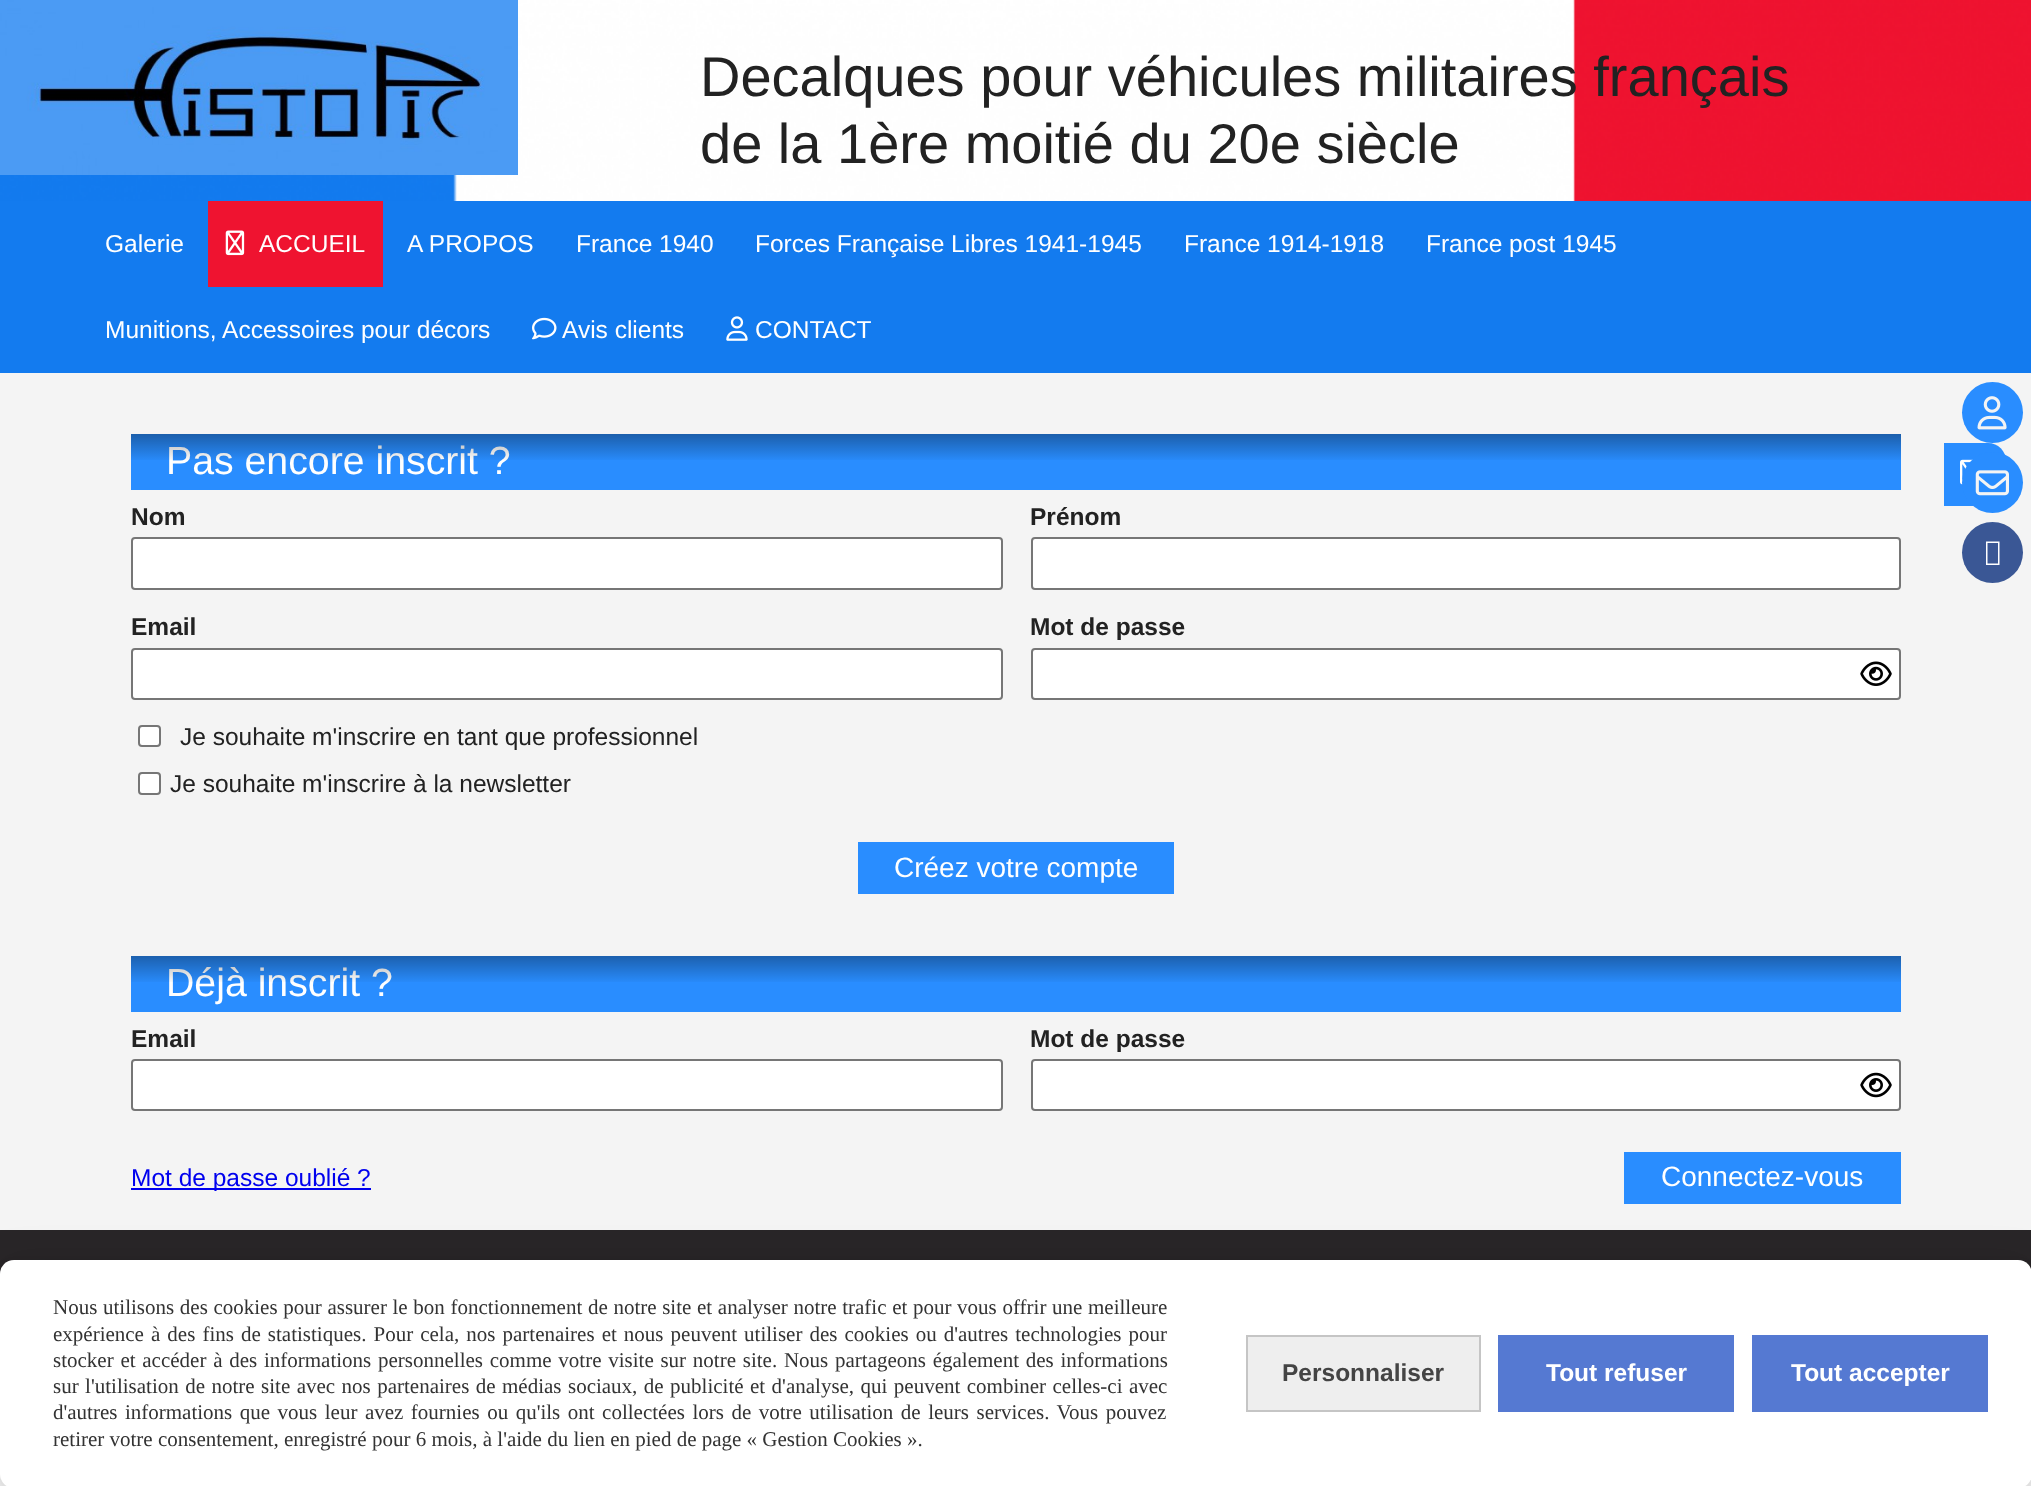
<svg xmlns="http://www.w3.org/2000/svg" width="2031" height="1486">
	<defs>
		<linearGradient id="g1" gradientUnits="userSpaceOnUse" x1="1016" y1="434" x2="1016" y2="462"><stop offset="0" stop-color="#000000" stop-opacity="0.33" /><stop offset="1" stop-color="#000000" stop-opacity="0" /></linearGradient>
		<linearGradient id="g2" gradientUnits="userSpaceOnUse" x1="1016" y1="955" x2="1016" y2="984"><stop offset="0" stop-color="#000000" stop-opacity="0.33" /><stop offset="1" stop-color="#000000" stop-opacity="0" /></linearGradient>
	</defs>
	<rect width="100%" height="100%" fill="#F4F4F4" />
	<image x="0" y="0" width="2031" height="201" href="assets/img1.png" />
	<image x="0" y="0" width="518" height="175" href="assets/img2.png" />
	<g font-family="Liberation Sans" font-size="56" fill="#222222">
		<text x="700" y="96">Decalques pour véhicules militaires français</text>
		<text x="700" y="163">de la 1ère moitié du 20e siècle</text>
	</g>
	<rect x="0" y="201" width="2031" height="172" fill="#137BEF" />
	<text x="105" y="252" font-family="Liberation Sans" font-size="24.5" fill="#FFFFFF">Galerie</text>
	<rect x="208" y="201" width="175" height="86" fill="#EF1330" />
	<image x="225" y="230" width="20" height="26" href="assets/img3.png" />
	<g font-family="Liberation Sans" font-size="24.5" fill="#FFFFFF">
		<text x="259" y="252">ACCUEIL</text>
		<text x="407" y="252">A PROPOS</text>
		<text x="576" y="252">France 1940</text>
		<text x="755" y="252">Forces Française Libres 1941-1945</text>
		<text x="1184" y="252">France 1914-1918</text>
		<text x="1426" y="252">France post 1945</text>
		<text x="105" y="338">Munitions, Accessoires pour décors</text>
	</g>
	<image x="532" y="317" width="25" height="23" href="assets/img4.png" />
	<text x="562" y="338" font-family="Liberation Sans" font-size="24.5" fill="#FFFFFF">Avis clients</text>
	<image x="726" y="316" width="22" height="25" href="assets/img5.png" />
	<text x="755" y="338" font-family="Liberation Sans" font-size="24.5" fill="#FFFFFF">CONTACT</text>
	<rect x="131" y="434" width="1770" height="56" fill="#298DFF" />
	<text x="166" y="474" font-family="Liberation Sans" font-size="39.25" fill="#FFFFFF">Pas encore inscrit ?</text>
	<rect x="131" y="434" width="1770" height="26" fill="url(#g1)" />
	<text x="131" y="525" font-family="Liberation Sans" font-size="24.5" font-weight="700" fill="#222222">Nom</text>
	<rect x="132" y="538" width="870" height="51" rx="3" fill="#FFFFFF" stroke="#767676" stroke-width="2" />
	<text x="1030" y="525" font-family="Liberation Sans" font-size="24.5" font-weight="700" fill="#222222">Prénom</text>
	<rect x="1032" y="538" width="868" height="51" rx="3" fill="#FFFFFF" stroke="#767676" stroke-width="2" />
	<text x="131" y="635" font-family="Liberation Sans" font-size="24.5" font-weight="700" fill="#222222">Email</text>
	<rect x="132" y="649" width="870" height="50" rx="3" fill="#FFFFFF" stroke="#767676" stroke-width="2" />
	<text x="1030" y="635" font-family="Liberation Sans" font-size="24.5" font-weight="700" fill="#222222">Mot de passe</text>
	<rect x="1032" y="649" width="868" height="50" rx="3" fill="#FFFFFF" stroke="#767676" stroke-width="2" />
	<image x="1860" y="661" width="32" height="25" href="assets/img6.png" />
	<rect x="139" y="726" width="21" height="20" rx="3" fill="#FFFFFF" stroke="#767676" stroke-width="2" />
	<text x="180" y="745" font-family="Liberation Sans" font-size="24.5" fill="#222222">Je souhaite m'inscrire en tant que professionnel</text>
	<rect x="139" y="773" width="21" height="21" rx="3" fill="#FFFFFF" stroke="#767676" stroke-width="2" />
	<text x="170" y="792" font-family="Liberation Sans" font-size="24.5" fill="#222222">Je souhaite m'inscrire à la newsletter</text>
	<rect x="858" y="842" width="316" height="52" fill="#298DFF" />
	<text x="894" y="877" font-family="Liberation Sans" font-size="28" fill="#FFFFFF">Créez votre compte</text>
	<rect x="131" y="956" width="1770" height="56" fill="#298DFF" />
	<text x="166" y="996" font-family="Liberation Sans" font-size="39.25" fill="#FFFFFF">Déjà inscrit ?</text>
	<rect x="131" y="956" width="1770" height="26" fill="url(#g2)" />
	<text x="131" y="1047" font-family="Liberation Sans" font-size="24.5" font-weight="700" fill="#222222">Email</text>
	<rect x="132" y="1060" width="870" height="50" rx="3" fill="#FFFFFF" stroke="#767676" stroke-width="2" />
	<text x="1030" y="1047" font-family="Liberation Sans" font-size="24.5" font-weight="700" fill="#222222">Mot de passe</text>
	<rect x="1032" y="1060" width="868" height="50" rx="3" fill="#FFFFFF" stroke="#767676" stroke-width="2" />
	<image x="1860" y="1072" width="32" height="26" href="assets/img7.png" />
	<rect x="131" y="1188" width="240" height="2" fill="#0000EE" />
	<text x="131" y="1186" font-family="Liberation Sans" font-size="24.5" fill="#0000EE">Mot de passe oublié ?</text>
	<rect x="1624" y="1152" width="277" height="52" fill="#298DFF" />
	<text x="1661" y="1186" font-family="Liberation Sans" font-size="28" fill="#FFFFFF">Connectez-vous</text>
	<rect x="0" y="1230" width="2031" height="44" fill="#292628" />
	<circle cx="1992.5" cy="412.5" r="30.5" fill="#298DFF" />
	<image x="1977" y="396" width="30" height="34" href="assets/img8.png" />
	<path d="M1944 443H1988C1998 443 2006 451 2006 461V488C2006 498 1998 506 1988 506H1944Z" fill="#298DFF" />
	<image x="1960" y="459" width="13" height="26" href="assets/img10.png" />
	<circle cx="1992.5" cy="482.5" r="30.5" fill="#298DFF" />
	<image x="1975" y="470" width="34" height="26" href="assets/img9.png" />
	<circle cx="1992.5" cy="552.5" r="30.5" fill="#3A5795" />
	<path d="M1986 565V541.5H1999.5V565ZM1987.5 563.5H1998V543H1987.5Z" fill="#FFFFFF" />
	<rect x="0" y="1264" width="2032" height="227" rx="14" fill="#000000" fill-opacity="0.05" filter="blur(5px)" />
	<rect x="0" y="1267" width="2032" height="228" rx="14" fill="#000000" fill-opacity="0.15" filter="blur(21px)" />
	<rect x="0" y="1260" width="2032" height="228" rx="14" fill="#FFFFFF" />
	<g font-family="Liberation Serif" font-size="21" fill="#333333">
		<text x="53" y="1314" word-spacing="0.4">Nous utilisons des cookies pour assurer le bon fonctionnement de notre site et analyser notre trafic et pour vous offrir une meilleure</text>
		<text x="53" y="1341" word-spacing="1.8">expérience à des fins de statistiques. Pour cela, nos partenaires et nous peuvent utiliser des cookies ou d'autres technologies pour</text>
		<text x="53" y="1367" word-spacing="1.5">stocker et accéder à des informations personnelles comme votre visite sur notre site. Nous partageons également des informations</text>
		<text x="53" y="1393" word-spacing="1.2">sur l'utilisation de notre site avec nos partenaires de médias sociaux, de publicité et d'analyse, qui peuvent combiner celles-ci avec</text>
		<text x="53" y="1419" word-spacing="2.25">d'autres informations que vous leur avez fournies ou qu'ils ont collectées lors de votre utilisation de leurs services. Vous pouvez</text>
		<text x="53" y="1446">retirer votre consentement, enregistré pour 6 mois, à l'aide du lien en pied de page « Gestion Cookies ».</text>
	</g>
	<rect x="1247" y="1336" width="233" height="75" fill="#EEEEEE" stroke="#C5C5C5" stroke-width="2" />
	<text x="1282" y="1381" font-family="Liberation Sans" font-size="24.5" font-weight="700" fill="#444444">Personnaliser</text>
	<rect x="1498" y="1335" width="236" height="77" fill="#5579D2" />
	<text x="1546" y="1381" font-family="Liberation Sans" font-size="24.5" font-weight="700" fill="#FFFFFF">Tout refuser</text>
	<rect x="1752" y="1335" width="236" height="77" fill="#5579D2" />
	<text x="1791" y="1381" font-family="Liberation Sans" font-size="24.5" font-weight="700" fill="#FFFFFF">Tout accepter</text>
</svg>
